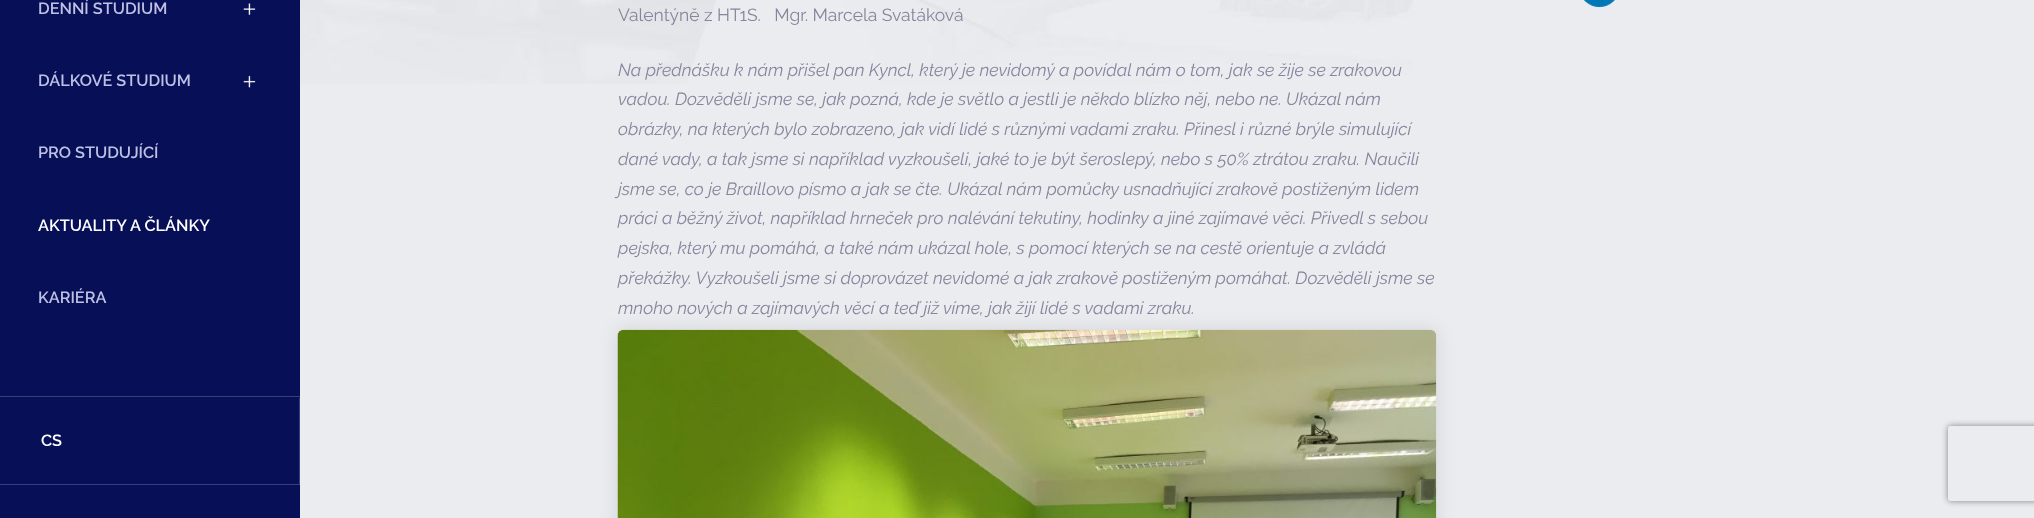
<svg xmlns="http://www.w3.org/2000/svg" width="2034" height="518">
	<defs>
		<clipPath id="clip1"><path d="M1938 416H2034V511H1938ZM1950.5 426H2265.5C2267 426 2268 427 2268 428.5V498.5C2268 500 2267 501 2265.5 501H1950.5C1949 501 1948 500 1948 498.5V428.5C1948 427 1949 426 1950.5 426Z" clip-rule="evenodd" /></clipPath>
	</defs>
	<rect width="100%" height="100%" fill="#EAECEF" />
	<rect x="0" y="0" width="300" height="518" fill="#070F57" />
	<text x="38" y="14" font-family="Raleway" font-size="16.25" font-weight="600" fill="#BEC1E3">DENNÍ STUDIUM</text>
	<image x="243" y="3" width="13" height="12" href="assets/img1.png" />
	<text x="38" y="86" font-family="Raleway" font-size="16.25" font-weight="600" fill="#BEC1E3">DÁLKOVÉ STUDIUM</text>
	<image x="243" y="75" width="13" height="13" href="assets/img2.png" />
	<text x="38" y="158" font-family="Raleway" font-size="16.25" font-weight="600" fill="#BEC1E3">PRO STUDUJÍCÍ</text>
	<text x="38" y="231" font-family="Raleway" font-size="16.25" font-weight="600" fill="#FFFFFF">AKTUALITY A ČLÁNKY</text>
	<text x="38" y="303" font-family="Raleway" font-size="16.25" font-weight="600" fill="#BEC1E3">KARIÉRA</text>
	<rect x="299" y="398" width="1" height="86" fill="#393F79" />
	<rect x="0" y="396" width="300" height="1" fill="#393F79" />
	<rect x="0" y="484" width="300" height="1" fill="#393F79" />
	<text x="41" y="446" font-family="Raleway" font-size="16.25" font-weight="600" fill="#FFFFFF">CS</text>
	<image x="300" y="0" width="1113" height="84" href="assets/img3.png" />
	<image x="1584" y="0" width="31" height="8" href="assets/img4.png" />
	<text x="618" y="21" font-family="Raleway" font-size="17.5" fill="#84869D" xml:space="preserve">Valentýně z HT1S.   Mgr. Marcela Svatáková</text>
	<g font-family="Raleway" font-size="17.5" font-style="italic" fill="#84869D">
		<text x="618" y="76">Na přednášku k nám přišel pan Kyncl, který je nevidomý a povídal nám o tom, jak se žije se zrakovou</text>
		<text x="618" y="105">vadou. Dozvěděli jsme se, jak pozná, kde je světlo a jestli je někdo blízko něj, nebo ne. Ukázal nám</text>
		<text x="618" y="135">obrázky, na kterých bylo zobrazeno, jak vidí lidé s různými vadami zraku. Přinesl i různé brýle simulující</text>
		<text x="618" y="165">dané vady, a tak jsme si například vyzkoušeli, jaké to je být šeroslepý, nebo s 50% ztrátou zraku. Naučili</text>
		<text x="618" y="195">jsme se, co je Braillovo písmo a jak se čte. Ukázal nám pomůcky usnadňující zrakově postiženým lidem</text>
		<text x="618" y="224">práci a běžný život, například hrneček pro nalévání tekutiny, hodinky a jiné zajímavé věci. Přivedl s sebou</text>
		<text x="618" y="254">pejska, který mu pomáhá, a také nám ukázal hole, s pomocí kterých se na cestě orientuje a zvládá</text>
		<text x="618" y="284">překážky. Vyzkoušeli jsme si doprovázet nevidomé a jak zrakově postiženým pomáhat. Dozvěděli jsme se</text>
	</g>
	<rect x="618" y="330" width="818" height="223" rx="6" fill="#000000" fill-opacity="0.1" filter="blur(9.5px)" />
	<image x="617" y="329" width="820" height="189" href="assets/img5.png" />
	<text x="618" y="314" font-family="Raleway" font-size="17.5" font-style="italic" fill="#84869D">mnoho nových a zajímavých věcí a teď již víme, jak žijí lidé s vadami zraku.</text>
	<g clip-path="url(#clip1)">
		<rect x="1948" y="426" width="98" height="75" rx="2.5" fill="#808080" filter="blur(3px)" />
	</g>
</svg>
